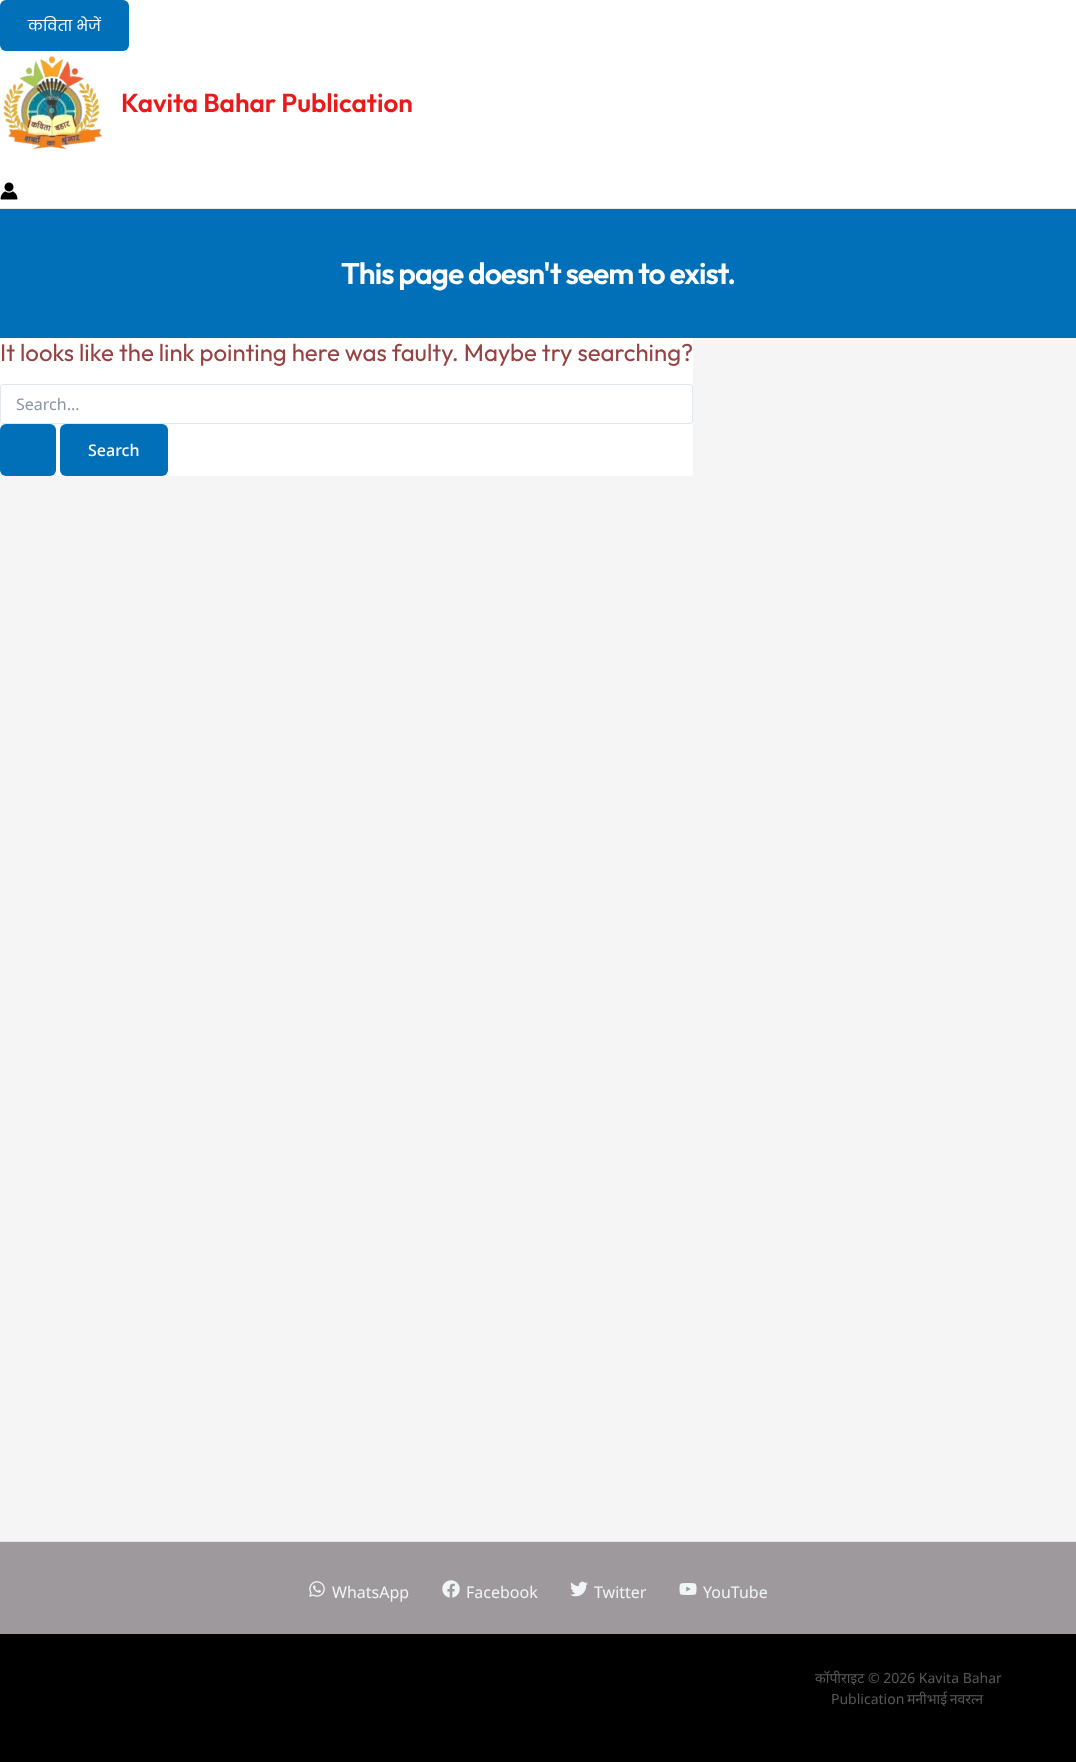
<svg xmlns="http://www.w3.org/2000/svg" width="1076" height="1762">
	<rect width="100%" height="100%" fill="#F5F5F5" />
	<rect x="0" y="0" width="1076" height="208" fill="#FFFFFF" />
	<rect x="0" y="208" width="1076" height="1" fill="#EAEAEA" />
	<rect x="0" y="0" width="129" height="51" rx="6" fill="#0170B9" />
	<text x="28" y="31" font-family="Poppins" font-size="15" fill="#FFFFFF">कविता भेजें</text>
	<image x="3" y="56" width="99" height="94" href="assets/img1.png" />
	<text x="121" y="112" font-family="Outfit" font-size="26" font-weight="600" fill="#EB1A1A">Kavita Bahar Publication</text>
	<image x="0" y="182" width="18" height="18" href="assets/img2.png" />
	<rect x="0" y="209" width="1076" height="129" fill="#0170B9" />
	<text x="341" y="284" font-family="Outfit" font-size="30" font-weight="600" letter-spacing="-1" fill="#FFFFFF">This page doesn't seem to exist.</text>
	<rect x="0" y="338" width="693" height="138" fill="#FFFFFF" />
	<text x="0" y="361" font-family="Outfit" font-size="24" fill="#994141">It looks like the link pointing here was faulty. Maybe try searching?</text>
	<rect x="0.5" y="384.5" width="692" height="39" rx="2.5" fill="none" stroke="#E1E8ED" />
	<text x="16" y="410" font-family="Noto Sans" font-size="16" fill="#8995A3">Search...</text>
	<rect x="0" y="424" width="56" height="52" rx="6" fill="#0170B9" />
	<rect x="60" y="424" width="108" height="52" rx="6" fill="#0170B9" />
	<text x="88" y="456" font-family="Noto Sans" font-size="16" font-weight="500" fill="#FFFFFF">Search</text>
	<rect x="0" y="1634" width="1076" height="128" fill="#000000" />
	<rect x="0" y="1542" width="1076" height="92" fill="#9D999D" />
	<rect x="0" y="1541" width="1076" height="1" fill="#E6E6E6" />
	<image x="309" y="1581" width="16" height="16" href="assets/img3.png" />
	<text x="332" y="1598" font-family="Noto Sans" font-size="16" fill="#F2F5F7">WhatsApp</text>
	<image x="442" y="1580" width="18" height="18" href="assets/img4.png" />
	<text x="466" y="1598" font-family="Noto Sans" font-size="16" fill="#F2F5F7">Facebook</text>
	<image x="570" y="1581" width="18" height="16" href="assets/img5.png" />
	<text x="594" y="1598" font-family="Noto Sans" font-size="16" fill="#F2F5F7">Twitter</text>
	<image x="679" y="1583" width="18" height="12" href="assets/img6.png" />
	<text x="703" y="1598" font-family="Noto Sans" font-size="16" fill="#F2F5F7">YouTube</text>
	<g font-family="Noto Sans" font-size="14" fill="#5A5858">
		<text x="815" y="1683">कॉपीराइट © 2026 Kavita Bahar</text>
		<text x="831" y="1704" word-spacing="-1">Publication मनीभाई नवरत्न</text>
	</g>
</svg>
